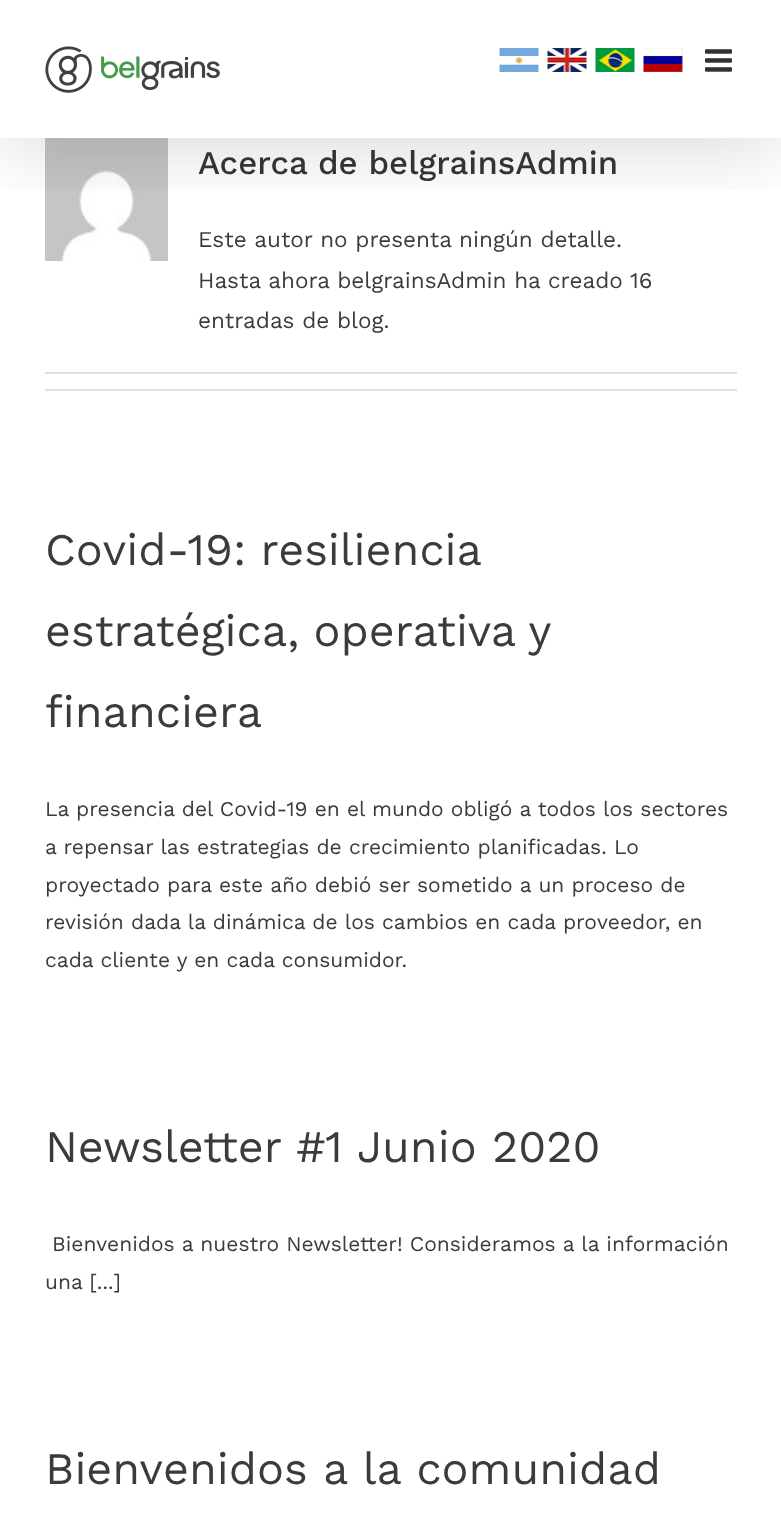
<svg xmlns="http://www.w3.org/2000/svg" width="781" height="1532">
	<defs>
		<clipPath id="clip1"><rect x="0" y="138" width="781" height="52" /></clipPath>
	</defs>
	<rect width="100%" height="100%" fill="#FFFFFF" />
	<image x="45" y="138" width="123" height="123" href="assets/img7.png" />
	<g clip-path="url(#clip1)">
		<rect x="3" y="18" width="776" height="132" fill="#000000" fill-opacity="0.14" filter="blur(37.5px)" />
	</g>
	<image x="45" y="46" width="175" height="47" href="assets/img1.png" />
	<image x="499" y="48" width="40" height="24" href="assets/img2.png" />
	<image x="547" y="48" width="40" height="24" href="assets/img3.png" />
	<image x="595" y="48" width="40" height="24" href="assets/img4.png" />
	<image x="643" y="48" width="40" height="24" href="assets/img5.png" />
	<image x="705" y="49" width="27" height="23" href="assets/img6.png" />
	<text x="198" y="174" font-family="Work Sans" font-size="33" font-weight="500" fill="#333333">Acerca de belgrainsAdmin</text>
	<g font-family="Work Sans" font-size="22.5" fill="#3B3B3B">
		<text x="198" y="247">Este autor no presenta ningún detalle.</text>
		<text x="198" y="288">Hasta ahora belgrainsAdmin ha creado 16</text>
		<text x="198" y="328">entradas de blog.</text>
	</g>
	<rect x="45" y="372" width="692" height="2" fill="#E0DEDE" />
	<rect x="45" y="389" width="692" height="2" fill="#E0DEDE" />
	<g font-family="Work Sans" font-size="45" fill="#3B3B3B">
		<text x="45" y="565" word-spacing="-1">Covid-19: resiliencia</text>
		<text x="45" y="646" word-spacing="-1">estratégica, operativa y</text>
		<text x="45" y="727">financiera</text>
	</g>
	<g font-family="Work Sans" font-size="21" fill="#3B3B3B">
		<text x="45" y="816">La presencia del Covid-19 en el mundo obligó a todos los sectores</text>
		<text x="45" y="854">a repensar las estrategias de crecimiento planificadas. Lo</text>
		<text x="45" y="892">proyectado para este año debió ser sometido a un proceso de</text>
		<text x="45" y="929">revisión dada la dinámica de los cambios en cada proveedor, en</text>
		<text x="45" y="967">cada cliente y en cada consumidor.</text>
	</g>
	<text x="45" y="1162" font-family="Work Sans" font-size="45" fill="#3B3B3B">Newsletter #1 Junio 2020</text>
	<g font-family="Work Sans" font-size="21" fill="#3B3B3B">
		<text x="52" y="1251">Bienvenidos a nuestro Newsletter! Consideramos a la información</text>
		<text x="45" y="1289">una [...]</text>
	</g>
	<text x="45" y="1484" font-family="Work Sans" font-size="45" fill="#3B3B3B">Bienvenidos a la comunidad</text>
</svg>
